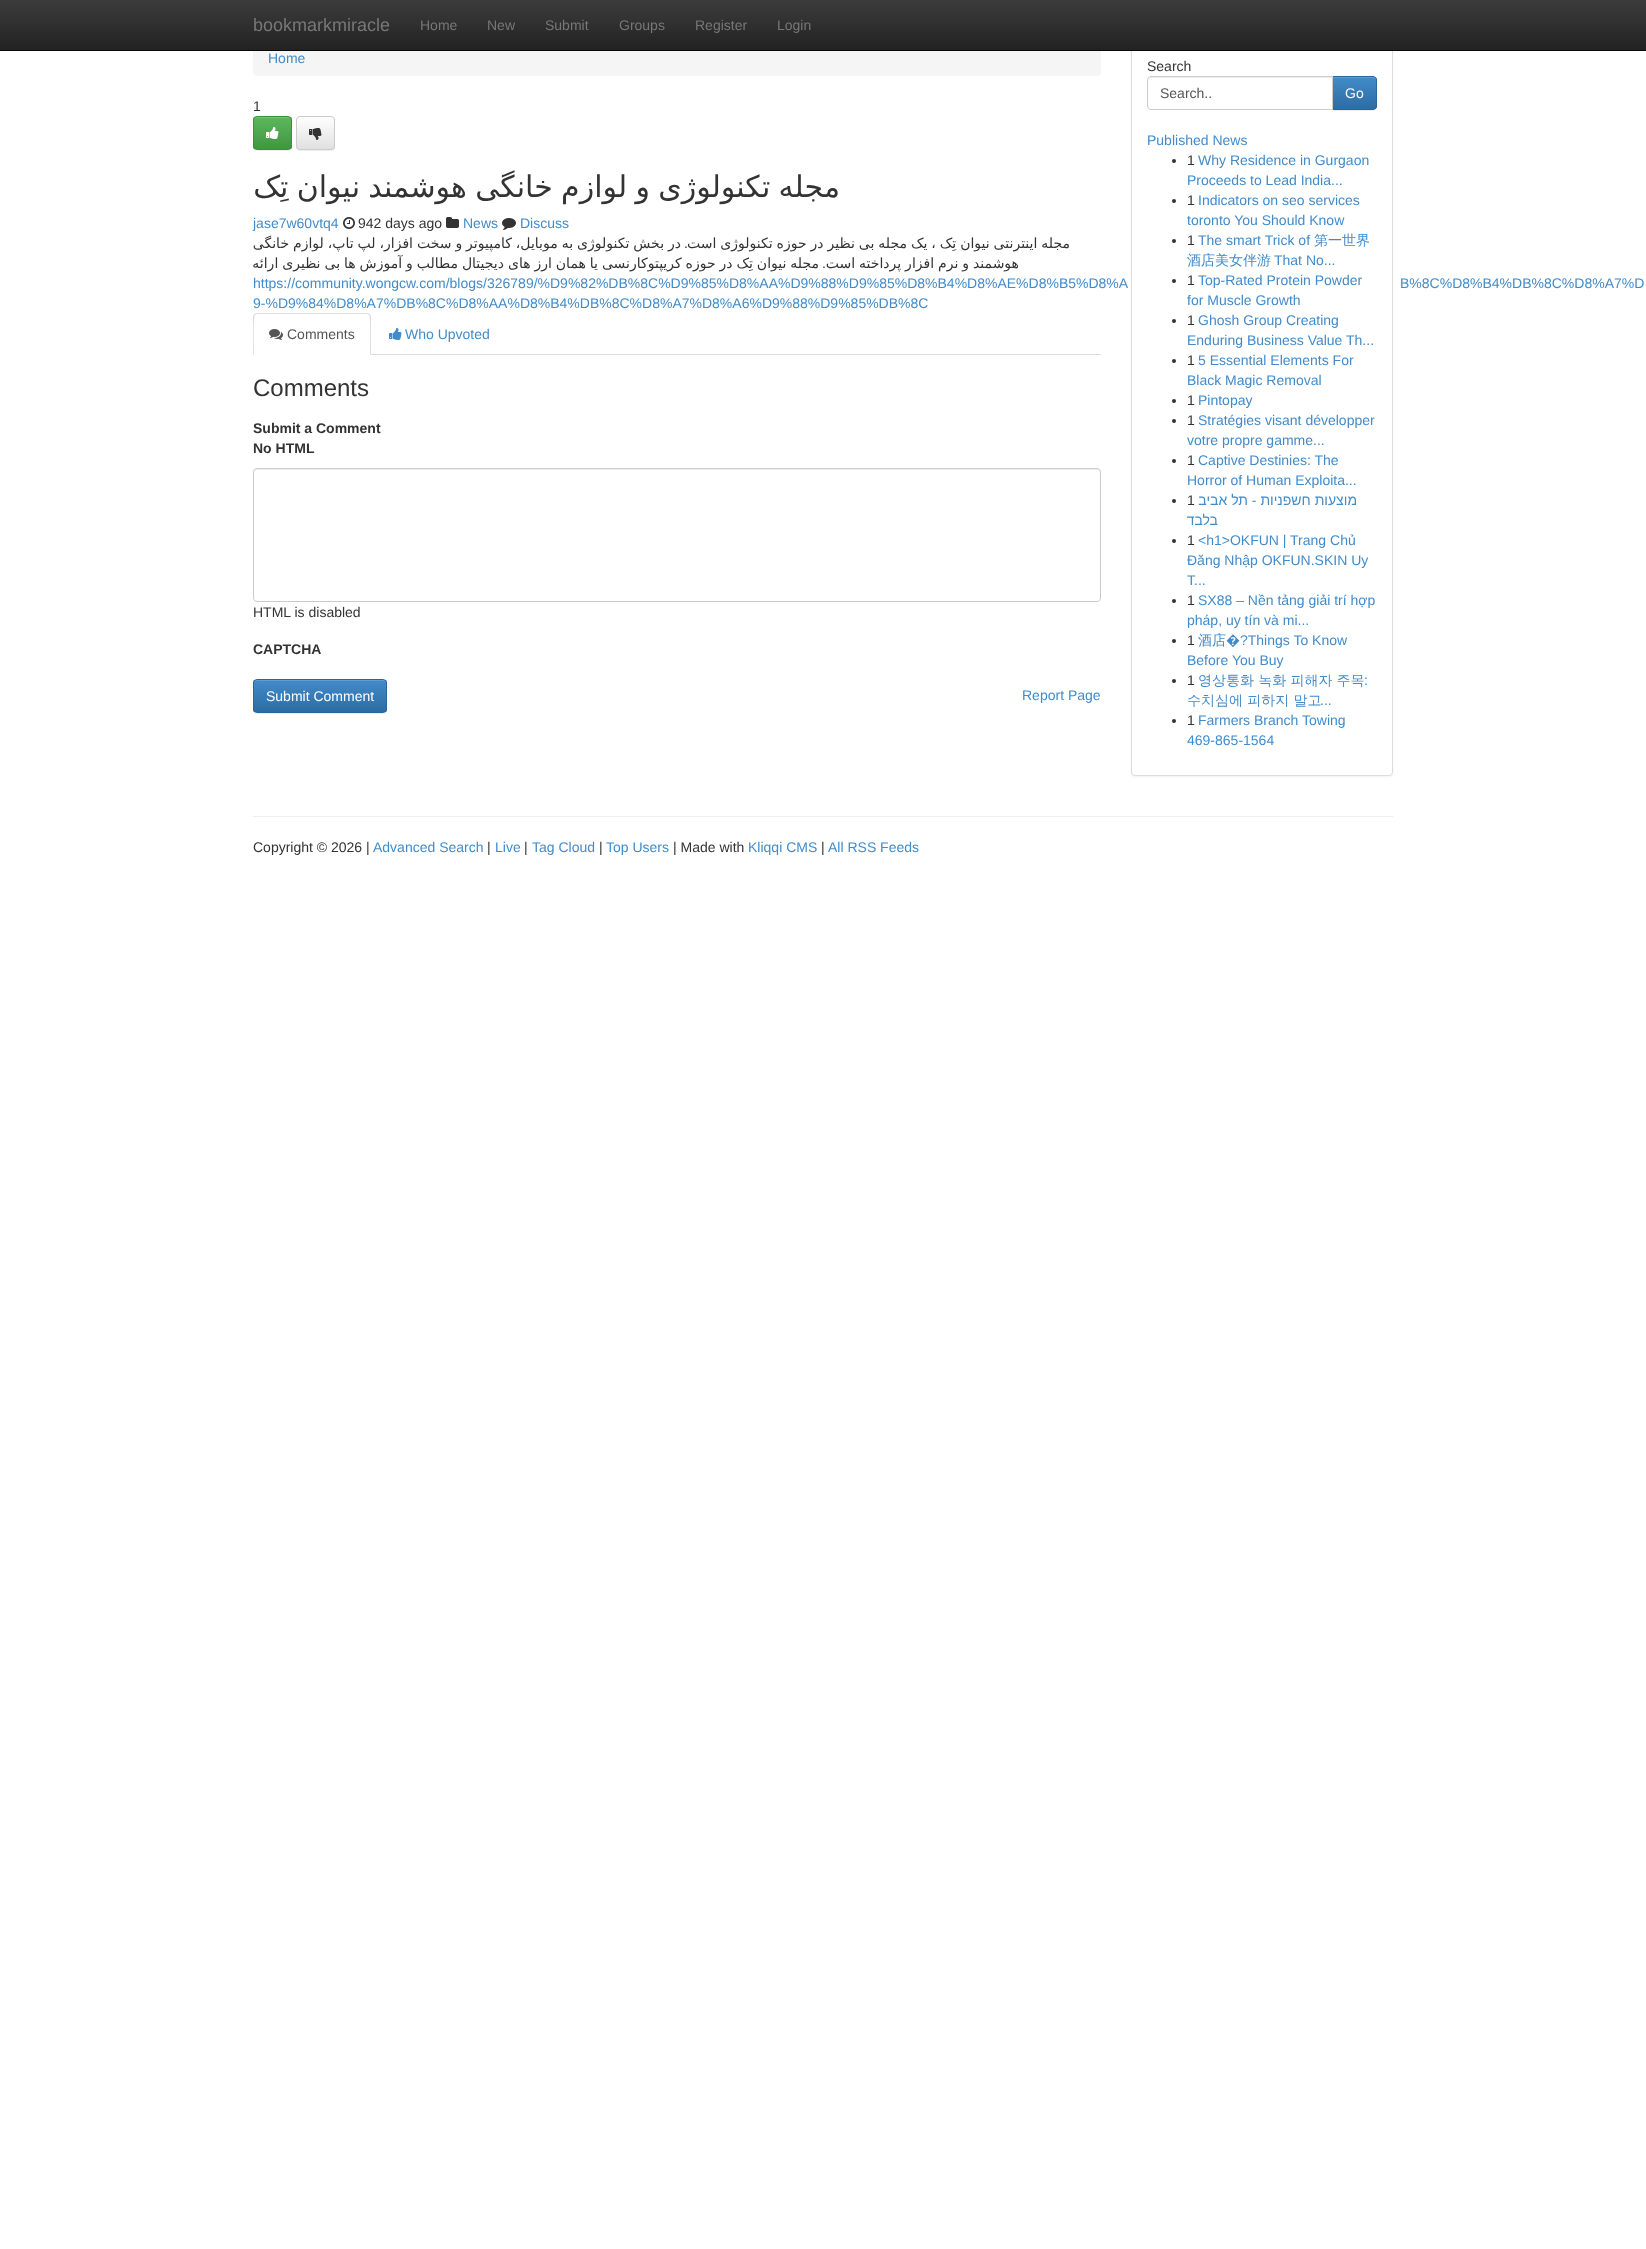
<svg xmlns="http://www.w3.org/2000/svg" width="1646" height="2249">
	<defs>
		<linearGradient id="g1" gradientUnits="userSpaceOnUse" x1="823" y1="0" x2="823" y2="50"><stop offset="0" stop-color="#3C3C3C" /><stop offset="1" stop-color="#222222" /></linearGradient>
		<clipPath id="clip1"><rect x="253" y="116" width="39" height="34" rx="4" /></clipPath>
		<linearGradient id="g2" gradientUnits="userSpaceOnUse" x1="273" y1="117" x2="273" y2="149"><stop offset="0" stop-color="#5CB85C" /><stop offset="1" stop-color="#419641" /></linearGradient>
		<clipPath id="clip2"><rect x="296" y="116" width="39" height="34" rx="4" /></clipPath>
		<linearGradient id="g3" gradientUnits="userSpaceOnUse" x1="316" y1="117" x2="316" y2="149"><stop offset="0" stop-color="#FFFFFF" /><stop offset="1" stop-color="#E0E0E0" /></linearGradient>
		<clipPath id="clip3"><rect x="253" y="679" width="134" height="34" rx="4" /></clipPath>
		<linearGradient id="g4" gradientUnits="userSpaceOnUse" x1="320" y1="680" x2="320" y2="712"><stop offset="0" stop-color="#428BCA" /><stop offset="1" stop-color="#2D6CA2" /></linearGradient>
		<clipPath id="clip4"><path d="M1332 76H1373C1375 76 1377 78 1377 80V106C1377 108 1375 110 1373 110H1332Z" /></clipPath>
		<linearGradient id="g5" gradientUnits="userSpaceOnUse" x1="1355" y1="77" x2="1355" y2="109"><stop offset="0" stop-color="#428BCA" /><stop offset="1" stop-color="#2D6CA2" /></linearGradient>
	</defs>
	<rect width="100%" height="100%" fill="#FFFFFF" />
	<rect x="253" y="40" width="848" height="36" rx="4" fill="#F5F5F5" />
	<rect x="1131" y="41" width="262" height="736" rx="4" fill="#000000" fill-opacity="0.05" filter="blur(1px)" />
	<rect x="1131.5" y="40.5" width="261" height="735" rx="3.5" fill="#FFFFFF" stroke="#DDDDDD" />
	<rect x="0" y="0" width="1646" height="50" fill="url(#g1)" />
	<rect x="0" y="50" width="1646" height="1" fill="#080808" />
	<text x="253" y="31" font-family="Liberation Sans" font-size="18" fill="#777777">bookmarkmiracle</text>
	<g font-family="Liberation Sans" font-size="14" fill="#777777">
		<text x="420" y="30">Home</text>
		<text x="487" y="30">New</text>
		<text x="545" y="30">Submit</text>
		<text x="619" y="30">Groups</text>
		<text x="695" y="30">Register</text>
		<text x="777" y="30">Login</text>
	</g>
	<text x="268" y="63" font-family="Liberation Sans" font-size="14" fill="#428BCA">Home</text>
	<text x="253" y="111" font-family="Liberation Sans" font-size="14" fill="#333333">1</text>
	<rect x="253" y="117" width="39" height="34" rx="4" fill="#000000" fill-opacity="0.07" filter="blur(0.5px)" />
	<g clip-path="url(#clip1)">
		<rect x="253" y="117" width="39" height="32" fill="url(#g2)" />
	</g>
	<path d="M257 118H288C290 118 291 119 291 121C291 116 287 117 283 117H262C258 117 254 116 254 121C254 119 255 118 257 118Z" fill="#74C274" />
	<rect x="253.5" y="116.5" width="38" height="33" rx="3.5" fill="none" stroke="#3E8F3E" />
	<image x="266" y="127" width="13" height="12" href="assets/img1.png" />
	<rect x="296" y="117" width="39" height="34" rx="4" fill="#000000" fill-opacity="0.07" filter="blur(0.5px)" />
	<g clip-path="url(#clip2)">
		<rect x="296" y="117" width="39" height="32" fill="url(#g3)" />
	</g>
	<rect x="296.5" y="116.5" width="38" height="33" rx="3.5" fill="none" stroke="#CCCCCC" />
	<image x="309" y="128" width="13" height="12" href="assets/img2.png" />
	<text x="840" y="197" word-spacing="-1.25" font-family="DejaVu Sans" font-size="30" direction="rtl" fill="#333333">مجله تکنولوژی و لوازم خانگی هوشمند نیوان تِک</text>
	<text x="253" y="228" font-family="Liberation Sans" font-size="14" fill="#428BCA">jase7w60vtq4</text>
	<image x="343" y="217" width="12" height="12" href="assets/img3.png" />
	<text x="358" y="228" font-family="Liberation Sans" font-size="14" fill="#333333">942 days ago</text>
	<image x="446" y="217" width="13" height="11" href="assets/img4.png" />
	<text x="463" y="228" font-family="Liberation Sans" font-size="14" fill="#428BCA">News</text>
	<image x="502" y="218" width="14" height="12" href="assets/img5.png" />
	<text x="520" y="228" font-family="Liberation Sans" font-size="14" fill="#428BCA">Discuss</text>
	<text x="681" y="248" word-spacing="-0.5" font-family="DejaVu Sans" font-size="14" direction="rtl" fill="#333333">در بخش تکنولوژی به موبایل، کامپیوتر و سخت افزار، لپ تاپ، لوازم خانگی</text>
	<text x="688" y="248" font-family="Liberation Sans" font-size="14" direction="rtl" fill="#333333">.</text>
	<g font-family="DejaVu Sans" font-size="14" direction="rtl" fill="#333333">
		<text x="1070" y="248" word-spacing="-0.5">مجله اینترنتی نیوان تِک ، یک مجله بی نظیر در حوزه تکنولوژی است</text>
		<text x="819" y="268" word-spacing="-0.5">مجله نیوان تِک در حوزه کریپتوکارنسی یا همان ارز های دیجیتال مطالب و آموزش ها بی نظیری ارائه</text>
	</g>
	<text x="826" y="268" font-family="Liberation Sans" font-size="14" direction="rtl" fill="#333333">.</text>
	<text x="1019" y="268" word-spacing="-0.5" font-family="DejaVu Sans" font-size="14" direction="rtl" fill="#333333">هوشمند و نرم افزار پرداخته است</text>
	<g font-family="Liberation Sans" font-size="14" fill="#428BCA">
		<text x="253" y="288">https://community.wongcw.com/blogs/326789/%D9%82%DB%8C%D9%85%D8%AA%D9%88%D9%85%D8%B4%D8%AE%D8%B5%D8%A</text>
		<text x="1400" y="288">B%8C%D8%B4%DB%8C%D8%A7%D</text>
		<text x="253" y="308">9-%D9%84%D8%A7%DB%8C%D8%AA%D8%B4%DB%8C%D8%A7%D8%A6%D9%88%D9%85%DB%8C</text>
	</g>
	<rect x="371" y="354" width="730" height="1" fill="#DDDDDD" />
	<path d="M257 313L254 314L255 315L257 314H367L369 315L370 314L367 313Z" fill="#DDDDDD" />
	<path d="M371 355V317C371 316 370 315 370 314L369 315C371 317 370 349 370 354Z" fill="#DDDDDD" />
	<path d="M253 355L254 354C254 349 253 317 255 315L254 314L253 317Z" fill="#DDDDDD" />
	<image x="269" y="329" width="14" height="11" href="assets/img6.png" />
	<text x="287" y="339" font-family="Liberation Sans" font-size="14" fill="#555555">Comments</text>
	<image x="389" y="328" width="13" height="12" href="assets/img7.png" />
	<text x="405" y="339" font-family="Liberation Sans" font-size="14" fill="#428BCA">Who Upvoted</text>
	<text x="253" y="396" font-family="Liberation Sans" font-size="24" fill="#333333">Comments</text>
	<g font-family="Liberation Sans" font-size="14" font-weight="700" fill="#333333">
		<text x="253" y="433">Submit a Comment</text>
		<text x="253" y="453">No HTML</text>
	</g>
	<path d="M257 470H1097C1099 470 1100 471 1100 473C1100 471 1099 469 1097 469H257C255 469 254 471 254 473C254 471 255 470 257 470Z" fill="#ECECEC" />
	<rect x="253.5" y="468.5" width="847" height="133" rx="3.5" fill="none" stroke="#CCCCCC" />
	<text x="253" y="617" font-family="Liberation Sans" font-size="14" fill="#333333">HTML is disabled</text>
	<text x="253" y="654" font-family="Liberation Sans" font-size="14" font-weight="700" fill="#333333">CAPTCHA</text>
	<rect x="253" y="680" width="134" height="34" rx="4" fill="#000000" fill-opacity="0.07" filter="blur(0.5px)" />
	<g clip-path="url(#clip3)">
		<rect x="253" y="680" width="134" height="32" fill="url(#g4)" />
	</g>
	<path d="M257 681H383C385 681 386 682 386 684C386 682 386 680 384 680H256C254 680 254 682 254 684C254 682 255 681 257 681Z" fill="#5E9CD1" />
	<rect x="253.5" y="679.5" width="133" height="33" rx="3.5" fill="none" stroke="#2B669A" />
	<text x="266" y="701" font-family="Liberation Sans" font-size="14" fill="#FFFFFF">Submit Comment</text>
	<text x="1022" y="700" font-family="Liberation Sans" font-size="14" fill="#428BCA">Report Page</text>
	<text x="1147" y="71" font-family="Liberation Sans" font-size="14" fill="#333333">Search</text>
	<rect x="1332" y="77" width="45" height="34" rx="4" fill="#000000" fill-opacity="0.07" filter="blur(0.5px)" />
	<g clip-path="url(#clip4)">
		<rect x="1333" y="77" width="44" height="32" fill="url(#g5)" />
	</g>
	<path d="M1333 78H1373C1375 78 1376 79 1376 81V80C1376 78 1375 77 1373 77H1333Z" fill="#5E9CD1" />
	<path d="M1332.5 76.5H1373C1375 76.5 1376.5 78 1376.5 80V106C1376.5 108 1375 109.5 1373 109.5H1332.5Z" fill="none" stroke="#2B669A" />
	<path d="M1151 76H1333V110H1151C1149 110 1147 108 1147 106V80C1147 78 1149 76 1151 76Z" fill="#FFFFFF" />
	<path d="M1151 78H1332V77H1150C1148 78 1148 79 1148 81C1148 79 1149 78 1151 78Z" fill="#ECECEC" />
	<path d="M1151 76.5H1332.5V109.5H1151C1149 109.5 1147.5 108 1147.5 106V80C1147.5 78 1149 76.5 1151 76.5Z" fill="none" stroke="#CCCCCC" />
	<text x="1160" y="98" font-family="Liberation Sans" font-size="14" fill="#555555">Search..</text>
	<text x="1345" y="98" font-family="Liberation Sans" font-size="14" fill="#FFFFFF">Go</text>
	<text x="1147" y="145" font-family="Liberation Sans" font-size="14" fill="#428BCA">Published News</text>
	<circle cx="1174" cy="161" r="2" fill="#333333" />
	<text x="1187" y="165" font-family="Liberation Sans" font-size="14" fill="#333333">1</text>
	<g font-family="Liberation Sans" font-size="14" fill="#428BCA">
		<text x="1198" y="165">Why Residence in Gurgaon</text>
		<text x="1187" y="185">Proceeds to Lead India...</text>
	</g>
	<circle cx="1174" cy="201" r="2" fill="#333333" />
	<text x="1187" y="205" font-family="Liberation Sans" font-size="14" fill="#333333">1</text>
	<g font-family="Liberation Sans" font-size="14" fill="#428BCA">
		<text x="1198" y="205">Indicators on seo services</text>
		<text x="1187" y="225">toronto You Should Know</text>
	</g>
	<circle cx="1174" cy="241" r="2" fill="#333333" />
	<text x="1187" y="245" font-family="Liberation Sans" font-size="14" fill="#333333">1</text>
	<text x="1198" y="245" font-family="Liberation Sans" font-size="14" fill="#428BCA">The smart Trick of</text>
	<g font-family="WenQuanYi Zen Hei" font-size="14" font-weight="500" fill="#428BCA">
		<text x="1314" y="245">第一世界</text>
		<text x="1187" y="265">酒店美女伴游</text>
	</g>
	<text x="1274" y="265" font-family="Liberation Sans" font-size="14" fill="#428BCA">That No...</text>
	<circle cx="1174" cy="281" r="2" fill="#333333" />
	<text x="1187" y="285" font-family="Liberation Sans" font-size="14" fill="#333333">1</text>
	<g font-family="Liberation Sans" font-size="14" fill="#428BCA">
		<text x="1198" y="285">Top-Rated Protein Powder</text>
		<text x="1187" y="305">for Muscle Growth</text>
	</g>
	<circle cx="1174" cy="321" r="2" fill="#333333" />
	<text x="1187" y="325" font-family="Liberation Sans" font-size="14" fill="#333333">1</text>
	<g font-family="Liberation Sans" font-size="14" fill="#428BCA">
		<text x="1198" y="325">Ghosh Group Creating</text>
		<text x="1187" y="345">Enduring Business Value Th...</text>
	</g>
	<circle cx="1174" cy="361" r="2" fill="#333333" />
	<text x="1187" y="365" font-family="Liberation Sans" font-size="14" fill="#333333">1</text>
	<g font-family="Liberation Sans" font-size="14" fill="#428BCA">
		<text x="1198" y="365">5 Essential Elements For</text>
		<text x="1187" y="385">Black Magic Removal</text>
	</g>
	<circle cx="1174" cy="401" r="2" fill="#333333" />
	<text x="1187" y="405" font-family="Liberation Sans" font-size="14" fill="#333333">1</text>
	<text x="1198" y="405" font-family="Liberation Sans" font-size="14" fill="#428BCA">Pintopay</text>
	<circle cx="1174" cy="421" r="2" fill="#333333" />
	<text x="1187" y="425" font-family="Liberation Sans" font-size="14" fill="#333333">1</text>
	<g font-family="Liberation Sans" font-size="14" fill="#428BCA">
		<text x="1198" y="425">Stratégies visant développer</text>
		<text x="1187" y="445">votre propre gamme...</text>
	</g>
	<circle cx="1174" cy="461" r="2" fill="#333333" />
	<text x="1187" y="465" font-family="Liberation Sans" font-size="14" fill="#333333">1</text>
	<g font-family="Liberation Sans" font-size="14" fill="#428BCA">
		<text x="1198" y="465">Captive Destinies: The</text>
		<text x="1187" y="485">Horror of Human Exploita...</text>
	</g>
	<circle cx="1174" cy="501" r="2" fill="#333333" />
	<text x="1187" y="505" font-family="Liberation Sans" font-size="14" fill="#333333">1</text>
	<g font-family="Liberation Sans" font-size="14" direction="rtl" fill="#428BCA">
		<text x="1357" y="505">מוצעות חשפניות - תל אביב</text>
		<text x="1218" y="525">בלבד</text>
	</g>
	<circle cx="1174" cy="541" r="2" fill="#333333" />
	<text x="1187" y="545" font-family="Liberation Sans" font-size="14" fill="#333333">1</text>
	<g font-family="Liberation Sans" font-size="14" fill="#428BCA">
		<text x="1198" y="545">&lt;h1&gt;OKFUN | Trang Chủ</text>
		<text x="1187" y="565">Đăng Nhập OKFUN.SKIN Uy</text>
		<text x="1187" y="585">T...</text>
	</g>
	<circle cx="1174" cy="601" r="2" fill="#333333" />
	<text x="1187" y="605" font-family="Liberation Sans" font-size="14" fill="#333333">1</text>
	<g font-family="Liberation Sans" font-size="14" fill="#428BCA">
		<text x="1198" y="605">SX88 – Nền tảng giải trí hợp</text>
		<text x="1187" y="625">pháp, uy tín và mi...</text>
	</g>
	<circle cx="1174" cy="641" r="2" fill="#333333" />
	<text x="1187" y="645" font-family="Liberation Sans" font-size="14" fill="#333333">1</text>
	<text x="1198" y="645" font-family="WenQuanYi Zen Hei" font-size="14" font-weight="500" fill="#428BCA">酒店</text>
	<text x="1226" y="645" font-family="Noto Sans" font-size="14" fill="#428BCA">�</text>
	<g font-family="Liberation Sans" font-size="14" fill="#428BCA">
		<text x="1240" y="645">?Things To Know</text>
		<text x="1187" y="665">Before You Buy</text>
	</g>
	<circle cx="1174" cy="681" r="2" fill="#333333" />
	<text x="1187" y="685" font-family="Liberation Sans" font-size="14" fill="#333333">1</text>
	<text x="1198" y="685" font-family="WenQuanYi Zen Hei" font-size="14" font-weight="500" fill="#428BCA">영상통화 녹화 피해자 주목</text>
	<text x="1364" y="685" font-family="Liberation Sans" font-size="14" fill="#428BCA">:</text>
	<text x="1187" y="705" font-family="WenQuanYi Zen Hei" font-size="14" font-weight="500" fill="#428BCA">수치심에 피하지 말고</text>
	<text x="1320" y="705" font-family="Liberation Sans" font-size="14" fill="#428BCA">...</text>
	<circle cx="1174" cy="721" r="2" fill="#333333" />
	<text x="1187" y="725" font-family="Liberation Sans" font-size="14" fill="#333333">1</text>
	<g font-family="Liberation Sans" font-size="14" fill="#428BCA">
		<text x="1198" y="725">Farmers Branch Towing</text>
		<text x="1187" y="745">469-865-1564</text>
	</g>
	<rect x="253" y="816" width="1140" height="1" fill="#EEEEEE" />
	<text x="253" y="852" font-family="Liberation Sans" font-size="14" fill="#333333">Copyright © 2026 |</text>
	<text x="373" y="852" font-family="Liberation Sans" font-size="14" fill="#428BCA">Advanced Search</text>
	<text x="487" y="852" font-family="Liberation Sans" font-size="14" fill="#333333">|</text>
	<text x="495" y="852" font-family="Liberation Sans" font-size="14" fill="#428BCA">Live</text>
	<text x="524" y="852" font-family="Liberation Sans" font-size="14" fill="#333333">|</text>
	<text x="532" y="852" font-family="Liberation Sans" font-size="14" fill="#428BCA">Tag Cloud</text>
	<text x="599" y="852" font-family="Liberation Sans" font-size="14" fill="#333333">|</text>
	<text x="606" y="852" font-family="Liberation Sans" font-size="14" fill="#428BCA">Top Users</text>
	<text x="673" y="852" font-family="Liberation Sans" font-size="14" fill="#333333">| Made with</text>
	<text x="748" y="852" font-family="Liberation Sans" font-size="14" fill="#428BCA">Kliqqi CMS</text>
	<text x="821" y="852" font-family="Liberation Sans" font-size="14" fill="#333333">|</text>
	<text x="828" y="852" font-family="Liberation Sans" font-size="14" fill="#428BCA">All RSS Feeds</text>
</svg>
